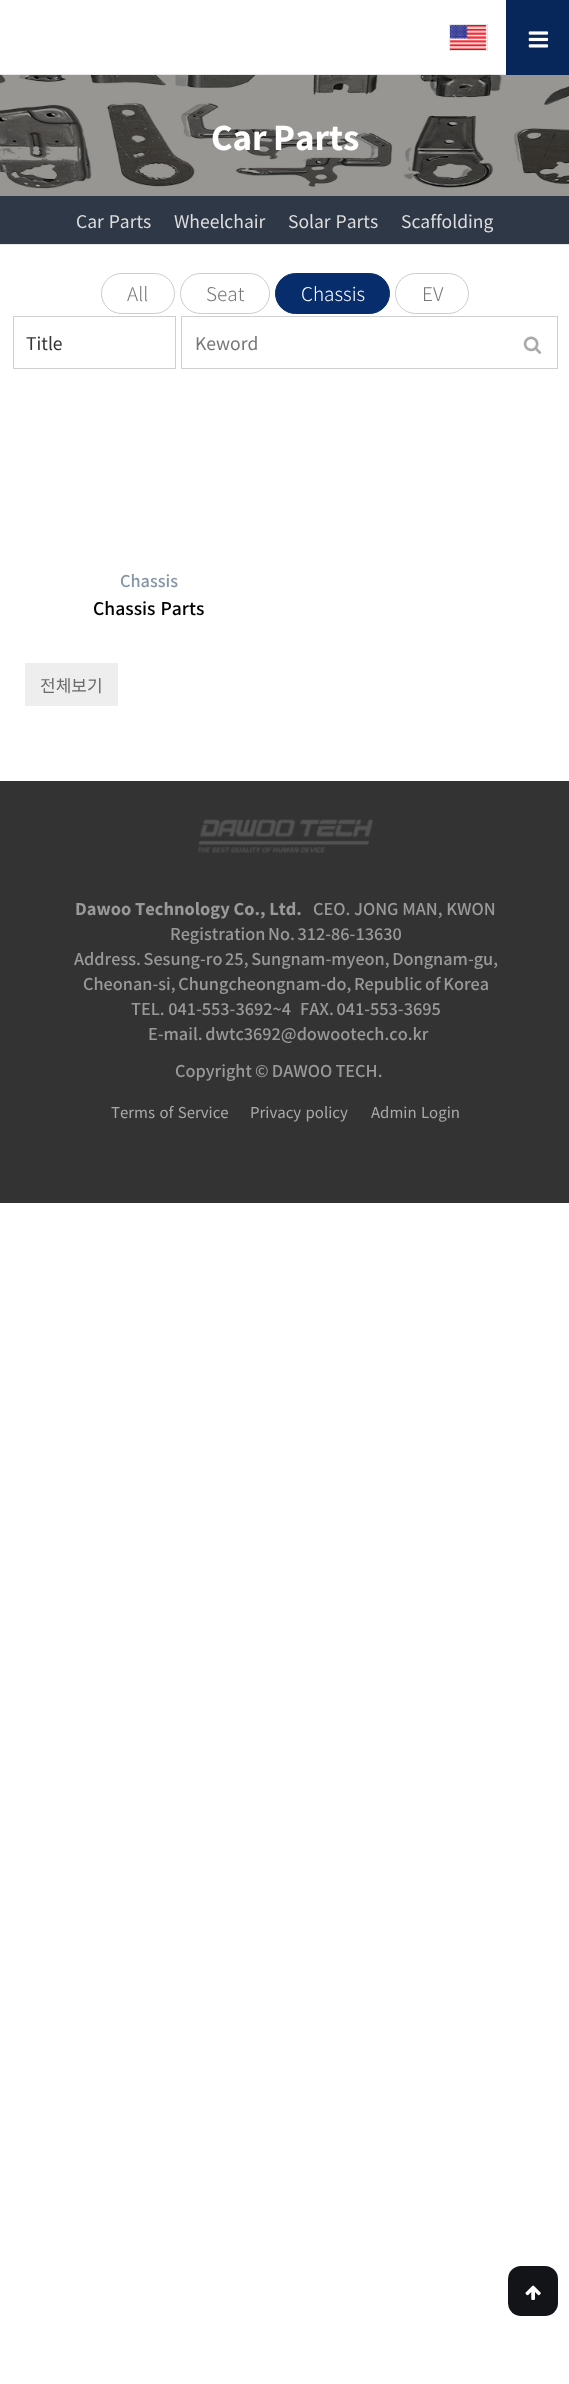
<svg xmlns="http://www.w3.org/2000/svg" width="569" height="2384">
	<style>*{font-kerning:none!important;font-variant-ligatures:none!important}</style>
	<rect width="100%" height="100%" fill="#FFFFFF" />
	<rect x="0" y="74" width="506" height="1" fill="#E7E7E7" />
	<rect x="449.5" y="24.5" width="38" height="26" fill="none" stroke="#E5E5E5" />
	<image x="450" y="25" width="37" height="25" href="assets/img1.png" />
	<rect x="506" y="0" width="63" height="75" fill="#072659" />
	<image x="528" y="31" width="21" height="17" href="assets/img2.png" />
	<image x="0" y="75" width="569" height="121" href="assets/img3.png" />
	<text x="211" y="150" word-spacing="-1" font-family="Noto Sans KR" font-size="32.5" font-weight="800" fill="#FFFFFF">Car Parts</text>
	<rect x="0" y="196" width="569" height="48" fill="#2F3847" />
	<rect x="0" y="244" width="569" height="1" fill="#E7E7E7" />
	<g font-family="Noto Sans KR" font-size="17.5" fill="#DDDDDD">
		<text x="76" y="228" word-spacing="1">Car Parts</text>
		<text x="174" y="228">Wheelchair</text>
		<text x="288" y="228" word-spacing="1">Solar Parts</text>
		<text x="401" y="228">Scaffolding</text>
	</g>
	<rect x="101.5" y="273.5" width="73" height="40" rx="20" fill="none" stroke="#CCCCCC" />
	<text x="127" y="301" font-family="Noto Sans KR" font-size="19" font-weight="300" fill="#777777">All</text>
	<rect x="180.5" y="273.5" width="89" height="40" rx="20" fill="none" stroke="#CCCCCC" />
	<text x="206" y="301" font-family="Noto Sans KR" font-size="19" font-weight="300" fill="#777777">Seat</text>
	<rect x="275.5" y="273.5" width="114" height="40" rx="20" fill="#082D6C" stroke="#082D6C" />
	<text x="301" y="301" font-family="Noto Sans KR" font-size="19" font-weight="300" fill="#FFFFFF">Chassis</text>
	<rect x="395.5" y="273.5" width="73" height="40" rx="20" fill="none" stroke="#CCCCCC" />
	<text x="422" y="301" font-family="Noto Sans KR" font-size="19" font-weight="300" fill="#777777">EV</text>
	<rect x="13.5" y="316.5" width="162" height="52" fill="none" stroke="#CFCFCF" />
	<text x="26" y="350" font-family="Noto Sans KR" font-size="17.5" fill="#333333">Title</text>
	<rect x="181.5" y="316.5" width="376" height="52" fill="none" stroke="#CFCFCF" />
	<text x="195" y="350" font-family="Noto Sans KR" font-size="17.5" fill="#777777">Keword</text>
	<image x="523" y="336" width="19" height="18" href="assets/img4.png" />
	<text x="120" y="587" font-family="Noto Sans KR" font-size="16.25" font-weight="500" fill="#8695A7">Chassis</text>
	<text x="93" y="615" word-spacing="1" font-family="Noto Sans KR" font-size="17.5" font-weight="500" fill="#000000">Chassis Parts</text>
	<rect x="25" y="663" width="93" height="43" fill="#EEEEEE" />
	<text x="40" y="692" font-family="Noto Sans KR" font-size="17" fill="#6B6B6B">전체보기</text>
	<rect x="0" y="781" width="569" height="422" fill="#333333" />
	<image x="198" y="819" width="175" height="34" href="assets/img5.png" />
	<text x="75" y="915" font-family="Noto Sans KR" font-size="16.25" font-weight="800" fill="#999999">Dawoo Technology Co., Ltd.</text>
	<g font-family="Noto Sans KR" font-size="16.25" font-weight="500" fill="#999999">
		<text x="313" y="915">CEO. JONG MAN, KWON</text>
		<text x="170" y="940" word-spacing="-1">Registration No. 312-86-13630</text>
		<text x="74" y="965" word-spacing="-1">Address. Sesung-ro 25, Sungnam-myeon, Dongnam-gu,</text>
		<text x="83" y="990" word-spacing="-1">Cheonan-si, Chungcheongnam-do, Republic of Korea</text>
		<text x="131" y="1015">TEL. 041-553-3692~4</text>
		<text x="300" y="1015" word-spacing="-1">FAX. 041-553-3695</text>
		<text x="148" y="1040" word-spacing="-1">E-mail. dwtc3692@dowootech.co.kr</text>
		<text x="175" y="1077" word-spacing="-0.5">Copyright © DAWOO TECH.</text>
	</g>
	<g font-family="Noto Sans KR" font-size="15" fill="#AAAAAA">
		<text x="111" y="1118" word-spacing="1">Terms of Service</text>
		<text x="250" y="1118" word-spacing="1">Privacy policy</text>
		<text x="371" y="1118" word-spacing="1">Admin Login</text>
	</g>
	<rect x="508" y="2266" width="50" height="50" rx="13" fill="#121418" />
	<image x="525" y="2285" width="16" height="15" href="assets/img6.png" />
</svg>
